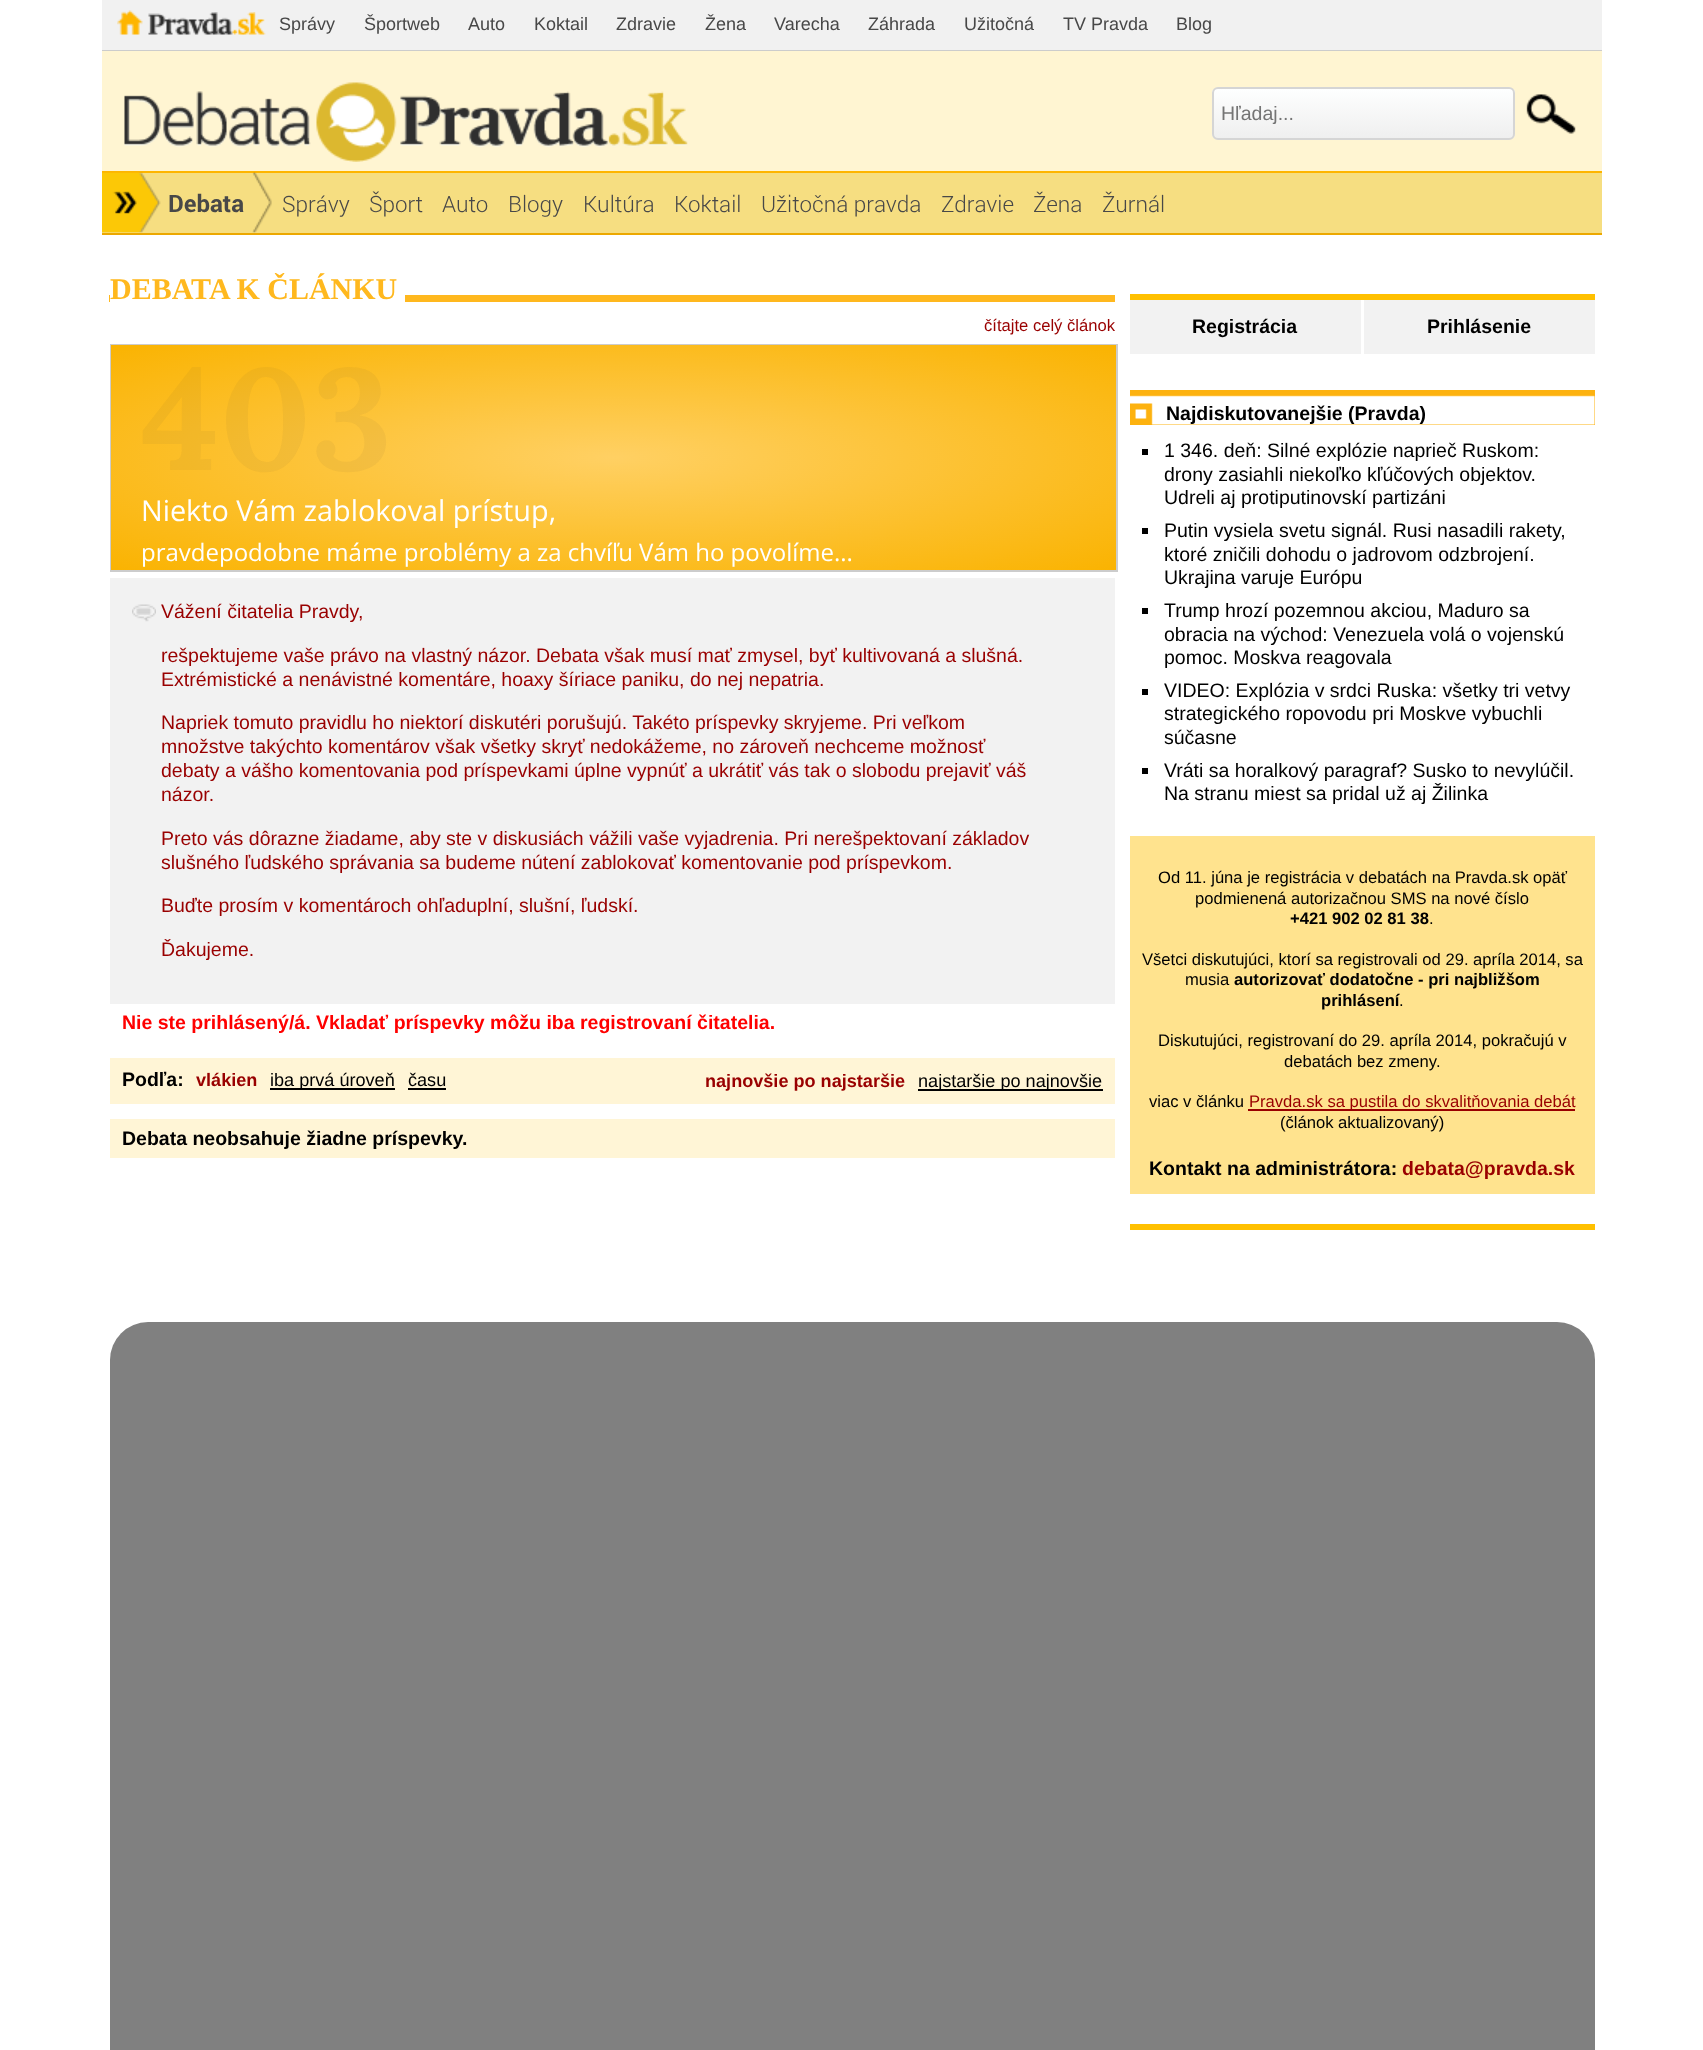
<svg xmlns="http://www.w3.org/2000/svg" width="1703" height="2050">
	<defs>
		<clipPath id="clip1"><rect x="1212" y="87" width="303" height="53" rx="6" /></clipPath>
		<linearGradient id="g1" gradientUnits="userSpaceOnUse" x1="1364" y1="88" x2="1364" y2="138"><stop offset="0" stop-color="#FEFFFF" /><stop offset="1" stop-color="#EFEFEF" /></linearGradient>
	</defs>
	<rect width="100%" height="100%" fill="#FFFFFF" />
	<rect x="102" y="0" width="1500" height="50" fill="#F1F1F1" />
	<rect x="102" y="50" width="1500" height="1" fill="#CCCCCC" />
	<image x="117" y="10" width="26" height="25" href="assets/img1.png" />
	<image x="148" y="12" width="118" height="23" href="assets/img2.png" />
	<g font-family="Liberation Sans" font-size="18" fill="#484848">
		<text x="279" y="30">Správy</text>
		<text x="364" y="30">Športweb</text>
		<text x="468" y="30">Auto</text>
		<text x="534" y="30">Koktail</text>
		<text x="616" y="30">Zdravie</text>
		<text x="705" y="30">Žena</text>
		<text x="774" y="30">Varecha</text>
		<text x="868" y="30">Záhrada</text>
		<text x="964" y="30">Užitočná</text>
		<text x="1063" y="30">TV Pravda</text>
		<text x="1176" y="30">Blog</text>
	</g>
	<rect x="102" y="51" width="1500" height="120" fill="#FFF5D2" />
	<image x="124" y="82" width="564" height="80" href="assets/img3.png" />
	<g clip-path="url(#clip1)">
		<rect x="1212" y="89" width="303" height="49" fill="url(#g1)" />
	</g>
	<rect x="1213" y="88" width="301" height="51" rx="5" fill="none" stroke="#D5D5D5" stroke-width="2" />
	<text x="1221" y="120" font-family="Liberation Sans" font-size="19.5" fill="#757575">Hľadaj...</text>
	<image x="1526" y="94" width="50" height="40" href="assets/img4.png" />
	<rect x="102" y="173" width="1500" height="60" fill="#F6DE81" />
	<rect x="102" y="171" width="1500" height="2" fill="#FEB500" />
	<rect x="102" y="233" width="1500" height="2" fill="#ECA800" />
	<image x="102" y="172" width="59" height="61" href="assets/img5.png" />
	<image x="252" y="172" width="20" height="61" href="assets/img6.png" />
	<text x="168" y="212" font-family="Roboto" font-size="24" font-weight="700" fill="#484848">Debata</text>
	<g font-family="Roboto" font-size="22.5" font-weight="300" fill="#484848">
		<text x="282" y="212">Správy</text>
		<text x="369" y="212">Šport</text>
		<text x="442" y="212">Auto</text>
		<text x="508" y="212">Blogy</text>
		<text x="583" y="212">Kultúra</text>
		<text x="674" y="212">Koktail</text>
		<text x="761" y="212">Užitočná pravda</text>
		<text x="941" y="212">Zdravie</text>
		<text x="1033" y="212">Žena</text>
		<text x="1102" y="212">Žurnál</text>
	</g>
	<rect x="109" y="295" width="1006" height="7" fill="#FFB81E" />
	<rect x="110" y="295" width="295" height="7" fill="#FFFFFF" />
	<text x="110" y="299" font-family="Liberation Serif" font-size="30" font-weight="700" fill="#FFB81E">DEBATA K ČLÁNKU</text>
	<text x="984" y="331" font-family="Liberation Sans" font-size="16.6" fill="#990000">čítajte celý článok</text>
	<rect x="111" y="345" width="1006" height="226" fill="none" stroke="#CCCCCC" stroke-width="2" />
	<image x="111" y="345" width="1005" height="225" href="assets/img7.png" />
	<rect x="110" y="578" width="1005" height="426" fill="#F2F2F2" />
	<image x="132" y="604" width="24" height="18" href="assets/img8.png" />
	<g font-family="Liberation Sans" font-size="19.5" fill="#990000">
		<text x="161" y="618">Vážení čitatelia Pravdy,</text>
		<text x="161" y="662">rešpektujeme vaše právo na vlastný názor. Debata však musí mať zmysel, byť kultivovaná a slušná.</text>
		<text x="161" y="686">Extrémistické a nenávistné komentáre, hoaxy šíriace paniku, do nej nepatria.</text>
		<text x="161" y="729">Napriek tomuto pravidlu ho niektorí diskutéri porušujú. Takéto príspevky skryjeme. Pri veľkom</text>
		<text x="161" y="753">množstve takýchto komentárov však všetky skryť nedokážeme, no zároveň nechceme možnosť</text>
		<text x="161" y="777">debaty a vášho komentovania pod príspevkami úplne vypnúť a ukrátiť vás tak o slobodu prejaviť váš</text>
		<text x="161" y="801">názor.</text>
		<text x="161" y="845">Preto vás dôrazne žiadame, aby ste v diskusiách vážili vaše vyjadrenia. Pri nerešpektovaní základov</text>
		<text x="161" y="869">slušného ľudského správania sa budeme nútení zablokovať komentovanie pod príspevkom.</text>
		<text x="161" y="912">Buďte prosím v komentároch ohľaduplní, slušní, ľudskí.</text>
		<text x="161" y="956">Ďakujeme.</text>
	</g>
	<text x="122" y="1029" font-family="Liberation Sans" font-size="19.5" font-weight="700" fill="#FF0000">Nie ste prihlásený/á. Vkladať príspevky môžu iba registrovaní čitatelia.</text>
	<rect x="110" y="1058" width="1005" height="46" fill="#FFF5D6" />
	<text x="122" y="1086" font-family="Liberation Sans" font-size="19.5" font-weight="700" fill="#000000">Podľa:</text>
	<text x="196" y="1086" font-family="Liberation Sans" font-size="18.1" font-weight="700" fill="#990000">vlákien</text>
	<rect x="270" y="1088" width="125" height="2" fill="#000000" />
	<g font-family="Liberation Sans" font-size="18.1" fill="#000000">
		<text x="270" y="1086">iba prvá úroveň</text>
		<text x="408" y="1086">času</text>
	</g>
	<rect x="408" y="1088" width="38" height="2" fill="#000000" />
	<text x="705" y="1087" font-family="Liberation Sans" font-size="18.1" font-weight="700" fill="#990000">najnovšie po najstaršie</text>
	<rect x="918" y="1089" width="185" height="2" fill="#000000" />
	<text x="918" y="1087" font-family="Liberation Sans" font-size="18.1" fill="#000000">najstaršie po najnovšie</text>
	<rect x="110" y="1119" width="1005" height="39" fill="#FFF5D6" />
	<text x="122" y="1145" font-family="Liberation Sans" font-size="19.5" font-weight="700" fill="#000000">Debata neobsahuje žiadne príspevky.</text>
	<rect x="1130" y="294" width="465" height="6" fill="#FFC000" />
	<rect x="1130" y="300" width="231" height="54" fill="#F2F2F2" />
	<text x="1192" y="333" font-family="Liberation Sans" font-size="19.5" font-weight="700" fill="#000000">Registrácia</text>
	<rect x="1364" y="300" width="231" height="54" fill="#F2F2F2" />
	<text x="1427" y="333" font-family="Liberation Sans" font-size="19.5" font-weight="700" fill="#000000">Prihlásenie</text>
	<rect x="1130" y="390" width="465" height="35" fill="#FDB20F" />
	<image x="1130" y="395" width="465" height="30" href="assets/img9.png" />
	<text x="1166" y="420" font-family="Liberation Sans" font-size="19.5" font-weight="700" fill="#000000">Najdiskutovanejšie (Pravda)</text>
	<rect x="1142" y="449" width="6" height="6" fill="#000000" />
	<g font-family="Liberation Sans" font-size="19.5" fill="#000000">
		<text x="1164" y="457">1 346. deň: Silné explózie naprieč Ruskom:</text>
		<text x="1164" y="481">drony zasiahli niekoľko kľúčových objektov.</text>
		<text x="1164" y="504">Udreli aj protiputinovskí partizáni</text>
	</g>
	<rect x="1142" y="528" width="6" height="6" fill="#000000" />
	<g font-family="Liberation Sans" font-size="19.5" fill="#000000">
		<text x="1164" y="537">Putin vysiela svetu signál. Rusi nasadili rakety,</text>
		<text x="1164" y="561">ktoré zničili dohodu o jadrovom odzbrojení.</text>
		<text x="1164" y="584">Ukrajina varuje Európu</text>
	</g>
	<rect x="1142" y="608" width="6" height="6" fill="#000000" />
	<g font-family="Liberation Sans" font-size="19.5" fill="#000000">
		<text x="1164" y="617">Trump hrozí pozemnou akciou, Maduro sa</text>
		<text x="1164" y="641">obracia na východ: Venezuela volá o vojenskú</text>
		<text x="1164" y="664">pomoc. Moskva reagovala</text>
	</g>
	<rect x="1142" y="689" width="6" height="6" fill="#000000" />
	<g font-family="Liberation Sans" font-size="19.5" fill="#000000">
		<text x="1164" y="697">VIDEO: Explózia v srdci Ruska: všetky tri vetvy</text>
		<text x="1164" y="720">strategického ropovodu pri Moskve vybuchli</text>
		<text x="1164" y="744">súčasne</text>
	</g>
	<rect x="1142" y="768" width="6" height="6" fill="#000000" />
	<g font-family="Liberation Sans" font-size="19.5" fill="#000000">
		<text x="1164" y="777">Vráti sa horalkový paragraf? Susko to nevylúčil.</text>
		<text x="1164" y="800">Na stranu miest sa pridal už aj Žilinka</text>
	</g>
	<rect x="1130" y="836" width="465" height="358" fill="#FFE38E" />
	<g font-family="Liberation Sans" font-size="16.6" fill="#000000">
		<text x="1158" y="883">Od 11. júna je registrácia v debatách na Pravda.sk opäť</text>
		<text x="1195" y="904">podmienená autorizačnou SMS na nové číslo</text>
	</g>
	<text x="1290" y="924" font-family="Liberation Sans" font-size="16.6" font-weight="700" fill="#000000">+421 902 02 81 38</text>
	<g font-family="Liberation Sans" font-size="16.6" fill="#000000">
		<text x="1429" y="924">.</text>
		<text x="1142" y="965">Všetci diskutujúci, ktorí sa registrovali od 29. apríla 2014, sa</text>
		<text x="1185" y="985">musia</text>
	</g>
	<g font-family="Liberation Sans" font-size="16.6" font-weight="700" fill="#000000">
		<text x="1234" y="985">autorizovať dodatočne - pri najbližšom</text>
		<text x="1321" y="1006">prihlásení</text>
	</g>
	<g font-family="Liberation Sans" font-size="16.6" fill="#000000">
		<text x="1399" y="1006">.</text>
		<text x="1158" y="1046">Diskutujúci, registrovaní do 29. apríla 2014, pokračujú v</text>
		<text x="1284" y="1067">debatách bez zmeny.</text>
		<text x="1149" y="1107">viac v článku</text>
	</g>
	<rect x="1248" y="1109" width="327" height="2" fill="#990000" />
	<text x="1249" y="1107" font-family="Liberation Sans" font-size="16.6" fill="#990000">Pravda.sk sa pustila do skvalitňovania debát</text>
	<text x="1280" y="1128" font-family="Liberation Sans" font-size="16.6" fill="#000000">(článok aktualizovaný)</text>
	<text x="1149" y="1175" font-family="Liberation Sans" font-size="19.5" font-weight="700" fill="#000000">Kontakt na administrátora:</text>
	<text x="1402" y="1175" font-family="Liberation Sans" font-size="19.5" font-weight="700" fill="#990000">debata@pravda.sk</text>
	<rect x="1130" y="1224" width="465" height="6" fill="#FFC000" />
	<rect x="110" y="1322" width="1485" height="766" rx="38" fill="#808080" />
</svg>
